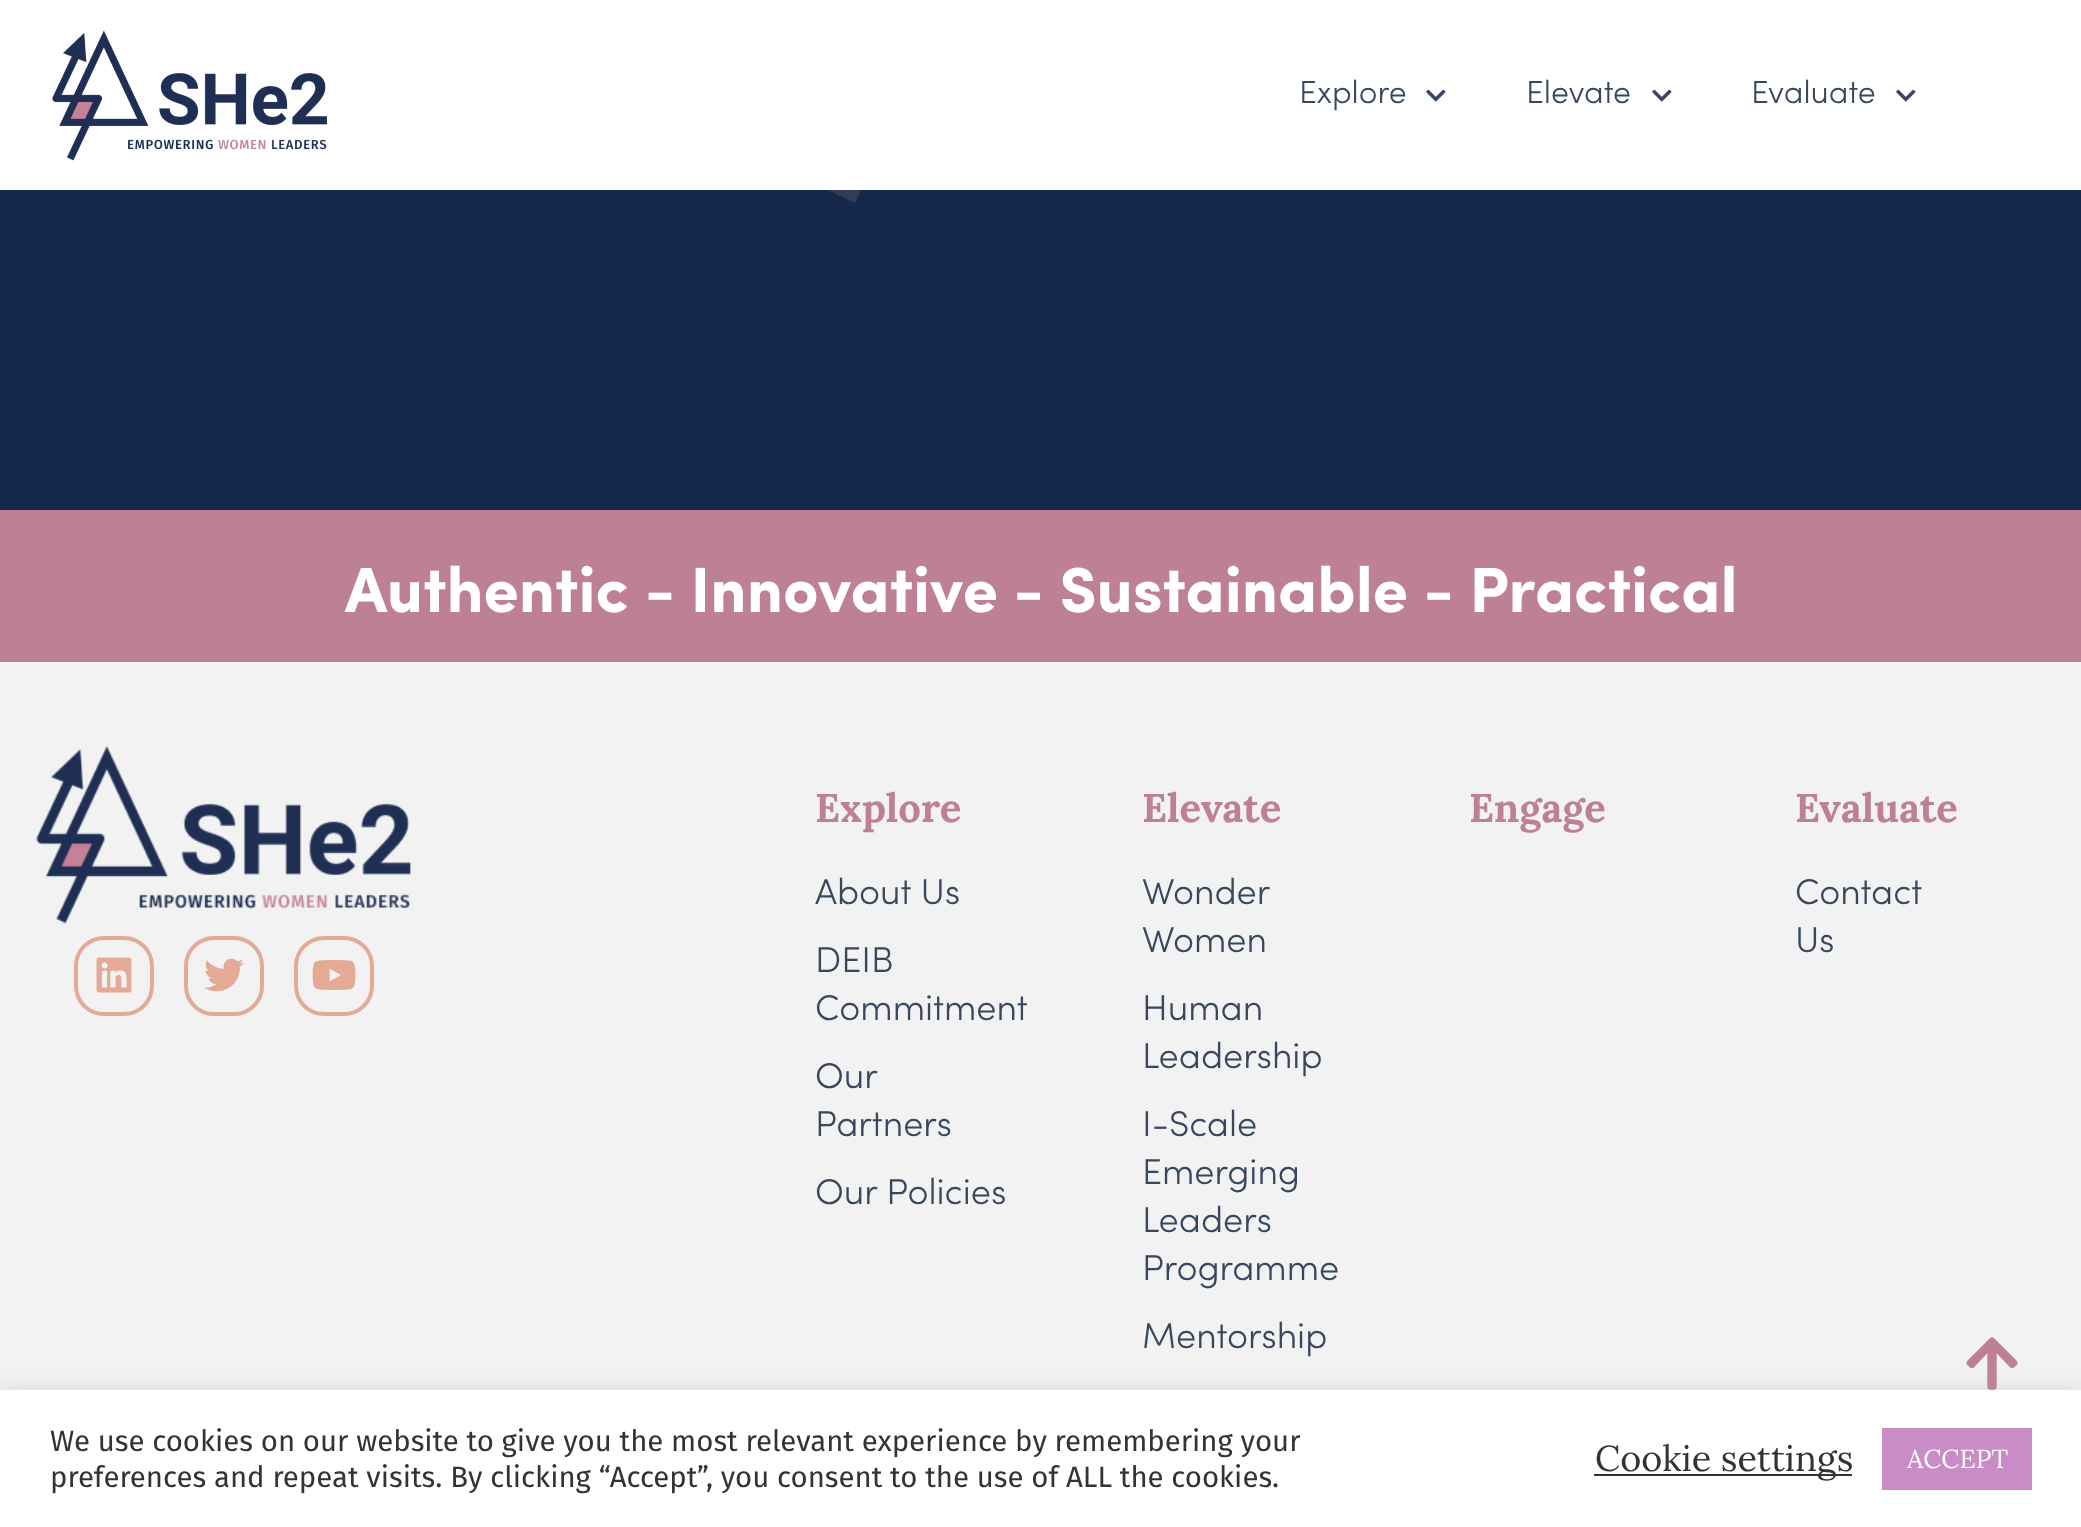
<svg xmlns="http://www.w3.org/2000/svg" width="2081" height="1527">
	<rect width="100%" height="100%" fill="#14294A" />
	<path d="M713-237L860-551L904-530L774-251H1029C1038-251 1046-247 1050-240C1055-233 1055-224 1051-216L855 203L811 182L991-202H735C727-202 719-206 715-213C710-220 709-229 713-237Z" fill="#313D57" fill-rule="evenodd" />
	<rect x="0" y="0" width="2081" height="190" fill="#FFFFFF" />
	<image x="52" y="30" width="275" height="131" href="assets/img1.png" />
	<text x="1299" y="103" font-family="Sofia" font-size="32" font-weight="300" fill="#38475E">Explore</text>
	<image x="1426" y="89" width="20" height="13" href="assets/img2.png" />
	<text x="1526" y="103" font-family="Sofia" font-size="32" font-weight="300" fill="#38475E">Elevate</text>
	<image x="1652" y="89" width="20" height="13" href="assets/img2.png" />
	<text x="1751" y="103" font-family="Sofia" font-size="32" font-weight="300" fill="#38475E">Evaluate</text>
	<image x="1896" y="89" width="20" height="13" href="assets/img2.png" />
	<rect x="0" y="662" width="2081" height="728" fill="#F2F2F2" />
	<image x="1966" y="1337" width="52" height="53" href="assets/img3.png" />
	<rect x="0" y="510" width="2081" height="152" fill="#BE8097" />
	<text x="345" y="612" font-family="Sofia" font-size="64" font-weight="700" fill="#FFFFFF">Authentic - Innovative - Sustainable - Practical</text>
	<image x="36" y="745" width="375" height="179" href="assets/img4.png" />
	<rect x="76" y="938" width="76" height="76" rx="28" fill="none" stroke="#E3AA95" stroke-width="4" />
	<image x="96" y="957" width="36" height="36" href="assets/img5.png" />
	<rect x="186" y="938" width="76" height="76" rx="28" fill="none" stroke="#E3AA95" stroke-width="4" />
	<image x="204" y="958" width="40" height="34" href="assets/img6.png" />
	<rect x="296" y="938" width="76" height="76" rx="28" fill="none" stroke="#E3AA95" stroke-width="4" />
	<image x="312" y="960" width="44" height="30" href="assets/img7.png" />
	<text x="815" y="822" font-family="Lora" font-size="40" font-weight="700" fill="#BE8097">Explore</text>
	<g font-family="Sofia" font-size="36" font-weight="300" fill="#38475E">
		<text x="815" y="904">About Us</text>
		<text x="815" y="972">DEIB</text>
		<text x="815" y="1020">Commitment</text>
		<text x="815" y="1088">Our</text>
		<text x="815" y="1136">Partners</text>
		<text x="815" y="1204">Our Policies</text>
	</g>
	<text x="1142" y="822" font-family="Lora" font-size="40" font-weight="700" fill="#BE8097">Elevate</text>
	<g font-family="Sofia" font-size="36" font-weight="300" fill="#38475E">
		<text x="1142" y="904">Wonder</text>
		<text x="1142" y="952">Women</text>
		<text x="1142" y="1020">Human</text>
		<text x="1142" y="1068">Leadership</text>
		<text x="1142" y="1136">I-Scale</text>
		<text x="1142" y="1184">Emerging</text>
		<text x="1142" y="1232">Leaders</text>
		<text x="1142" y="1280">Programme</text>
		<text x="1142" y="1348">Mentorship</text>
	</g>
	<g font-family="Lora" font-size="40" font-weight="700" fill="#BE8097">
		<text x="1469" y="822">Engage</text>
		<text x="1795" y="822">Evaluate</text>
	</g>
	<g font-family="Sofia" font-size="36" font-weight="300" fill="#38475E">
		<text x="1795" y="904">Contact</text>
		<text x="1795" y="952">Us</text>
	</g>
	<rect x="0" y="1388" width="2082" height="138" fill="#ACABAB" fill-opacity="0.3" filter="blur(10px)" />
	<rect x="0" y="1390" width="2081" height="137" fill="#FFFFFF" />
	<g font-family="Fira Sans" font-size="29.35" fill="#333333">
		<text x="50" y="1451">We use cookies on our website to give you the most relevant experience by remembering your</text>
		<text x="50" y="1487">preferences and repeat visits. By clicking “Accept”, you consent to the use of ALL the cookies.</text>
	</g>
	<rect x="1594" y="1474" width="258" height="2" fill="#333333" />
	<text x="1595" y="1471" font-family="Lora" font-size="36" fill="#333333">Cookie settings</text>
	<rect x="1882" y="1428" width="150" height="62" fill="#C98CC6" />
	<text x="1907" y="1468" font-family="Lora" font-size="26" fill="#FFFFFF">ACCEPT</text>
</svg>
